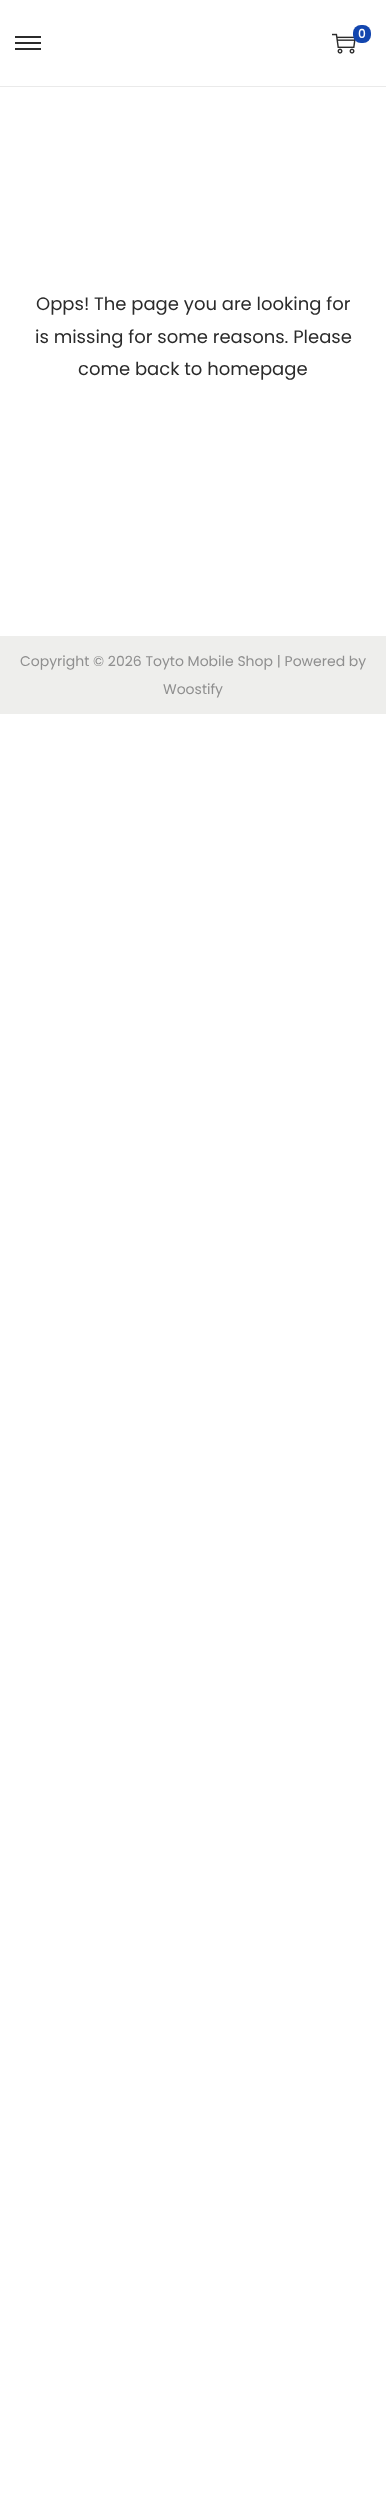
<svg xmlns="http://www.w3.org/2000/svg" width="386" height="2495">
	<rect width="100%" height="100%" fill="#FFFFFF" />
	<rect x="0" y="86" width="386" height="1" fill="#EAEAEA" />
	<image x="332" y="33" width="24" height="21" href="assets/img1.png" />
	<rect x="353" y="25" width="18" height="18" rx="8" fill="#1346AF" />
	<text x="358" y="38" font-family="Poppins" font-size="12" font-weight="700" fill="#FFFFFF">0</text>
	<rect x="15" y="42" width="26" height="2" fill="#2B2B2B" />
	<rect x="15" y="36" width="26" height="2" fill="#2B2B2B" />
	<rect x="15" y="48" width="26" height="2" fill="#2B2B2B" />
	<g font-family="Poppins" font-size="18" fill="#2B2B2B">
		<text x="36" y="310">Opps! The page you are looking for</text>
		<text x="35" y="343">is missing for some reasons. Please</text>
		<text x="78" y="375">come back to homepage</text>
	</g>
	<rect x="0" y="636" width="386" height="78" fill="#EEEEEC" />
	<g font-family="Poppins" font-size="14" fill="#8F8F8F">
		<text x="20" y="666">Copyright © 2026 Toyto Mobile Shop | Powered by</text>
		<text x="163" y="694">Woostify</text>
	</g>
</svg>
